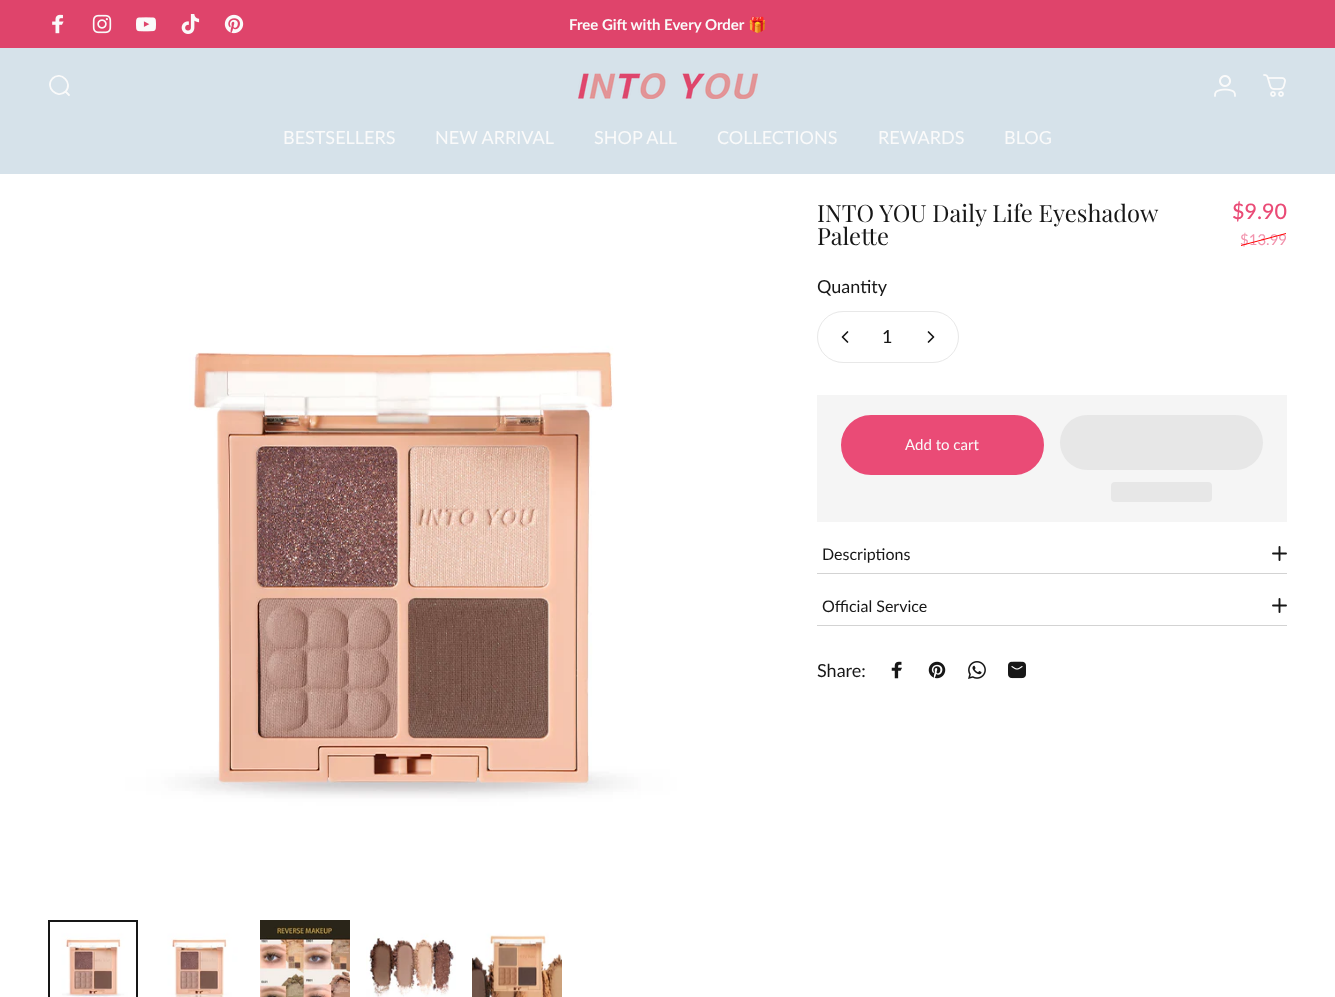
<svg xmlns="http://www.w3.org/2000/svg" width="1335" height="997">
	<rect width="100%" height="100%" fill="#FFFFFF" />
	<rect x="0" y="0" width="1335" height="48" fill="#DF446B" />
	<image x="52" y="14" width="12" height="20" href="assets/img1.png" />
	<image x="92" y="14" width="20" height="20" href="assets/img2.png" />
	<image x="136" y="17" width="20" height="15" href="assets/img3.png" />
	<image x="181" y="14" width="19" height="20" href="assets/img4.png" />
	<image x="224" y="14" width="20" height="20" href="assets/img5.png" />
	<text x="569" y="30" font-family="Lato" font-size="15" font-weight="700" fill="#FAFAFA">Free Gift with Every Order</text>
	<text x="748" y="30" font-family="Noto Color Emoji" font-size="15" font-weight="700" fill="#FAFAFA">🎁</text>
	<rect x="0" y="48" width="1335" height="126" fill="#D6E2EA" />
	<path d="M69 95L65.5 91.5M65.5 91.5C73.5 83 61 70.5 52.5 78.5C44.5 87 57 99.5 65.5 91.5Z" fill="none" stroke="#FAFAFA" stroke-width="1.8" stroke-linecap="round" />
	<image x="578" y="73" width="180" height="26" href="assets/img6.png" />
	<image x="1214" y="75" width="22" height="22" href="assets/img7.png" />
	<image x="1263" y="74" width="23" height="23" href="assets/img8.png" />
	<g font-family="Lato" font-size="18" fill="#FAFAFA">
		<text x="283" y="144">BESTSELLERS</text>
		<text x="435" y="144">NEW ARRIVAL</text>
		<text x="594" y="144">SHOP ALL</text>
		<text x="717" y="144">COLLECTIONS</text>
		<text x="878" y="144">REWARDS</text>
		<text x="1004" y="144">BLOG</text>
	</g>
	<image x="48" y="198" width="706" height="706" href="assets/img9.png" />
	<image x="50" y="922" width="86" height="75" href="assets/img10.png" />
	<rect x="49" y="921" width="88" height="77" fill="none" stroke="#171717" stroke-width="2" />
	<image x="154" y="920" width="90" height="77" href="assets/img11.png" />
	<image x="260" y="920" width="90" height="77" href="assets/img12.png" />
	<image x="366" y="920" width="90" height="77" href="assets/img13.png" />
	<image x="472" y="920" width="90" height="77" href="assets/img14.png" />
	<g font-family="Playfair Display" font-size="23.75" fill="#171717">
		<text x="817" y="222">INTO YOU Daily Life Eyeshadow</text>
		<text x="817" y="245">Palette</text>
	</g>
	<text x="1232" y="219" font-family="Lato" font-size="21.5" font-weight="500" fill="#EA4B76">$9.90</text>
	<text x="1240" y="245" font-family="Lato" font-size="15" fill="#F293AD">$13.99</text>
	<path d="M1241 245L1286 233V234L1241 246Z" fill="#FF0000" />
	<text x="817" y="293" font-family="Lato" font-size="18" fill="#171717">Quantity</text>
	<rect x="817.5" y="311.5" width="141" height="51" rx="25.5" fill="none" stroke="#E8E8E8" />
	<path d="M847.5 332L842.5 337L847.5 342" fill="none" stroke="#171717" stroke-width="1.7" stroke-linecap="round" stroke-linejoin="round" />
	<text x="882" y="343" font-family="Lato" font-size="18" font-weight="500" fill="#171717">1</text>
	<path d="M928.5 332L933.5 337L928.5 342" fill="none" stroke="#171717" stroke-width="1.7" stroke-linecap="round" stroke-linejoin="round" />
	<rect x="817" y="395" width="470" height="127" fill="#F5F5F5" />
	<rect x="842" y="416" width="201" height="58" rx="29" fill="#EA4B76" stroke="#EA4B76" stroke-width="2" />
	<text x="905" y="450" font-family="Lato" font-size="15" fill="#FAFAFA">Add to cart</text>
	<rect x="1060" y="415" width="203" height="55" rx="27.5" fill="#E7E7E7" />
	<rect x="1111" y="482" width="101" height="20" rx="4" fill="#E7E7E7" />
	<rect x="817" y="573" width="470" height="1" fill="#D3D3D3" />
	<text x="822" y="560" font-family="Lato" font-size="16" fill="#171717">Descriptions</text>
	<path d="M1279.5 547V560M1286 553.5H1273" fill="none" stroke="#171717" stroke-width="1.9" stroke-linecap="round" stroke-linejoin="round" />
	<rect x="817" y="625" width="470" height="1" fill="#D3D3D3" />
	<text x="822" y="612" font-family="Lato" font-size="16" fill="#171717">Official Service</text>
	<path d="M1279.5 599V612M1286 605.5H1273" fill="none" stroke="#171717" stroke-width="1.9" stroke-linecap="round" stroke-linejoin="round" />
	<text x="817" y="677" font-family="Lato" font-size="18" fill="#171717">Share:</text>
	<image x="891" y="661" width="11" height="18" href="assets/img15.png" />
	<image x="928" y="661" width="18" height="18" href="assets/img16.png" />
	<image x="968" y="661" width="18" height="18" href="assets/img17.png" />
	<image x="1008" y="661" width="18" height="18" href="assets/img18.png" />
</svg>
